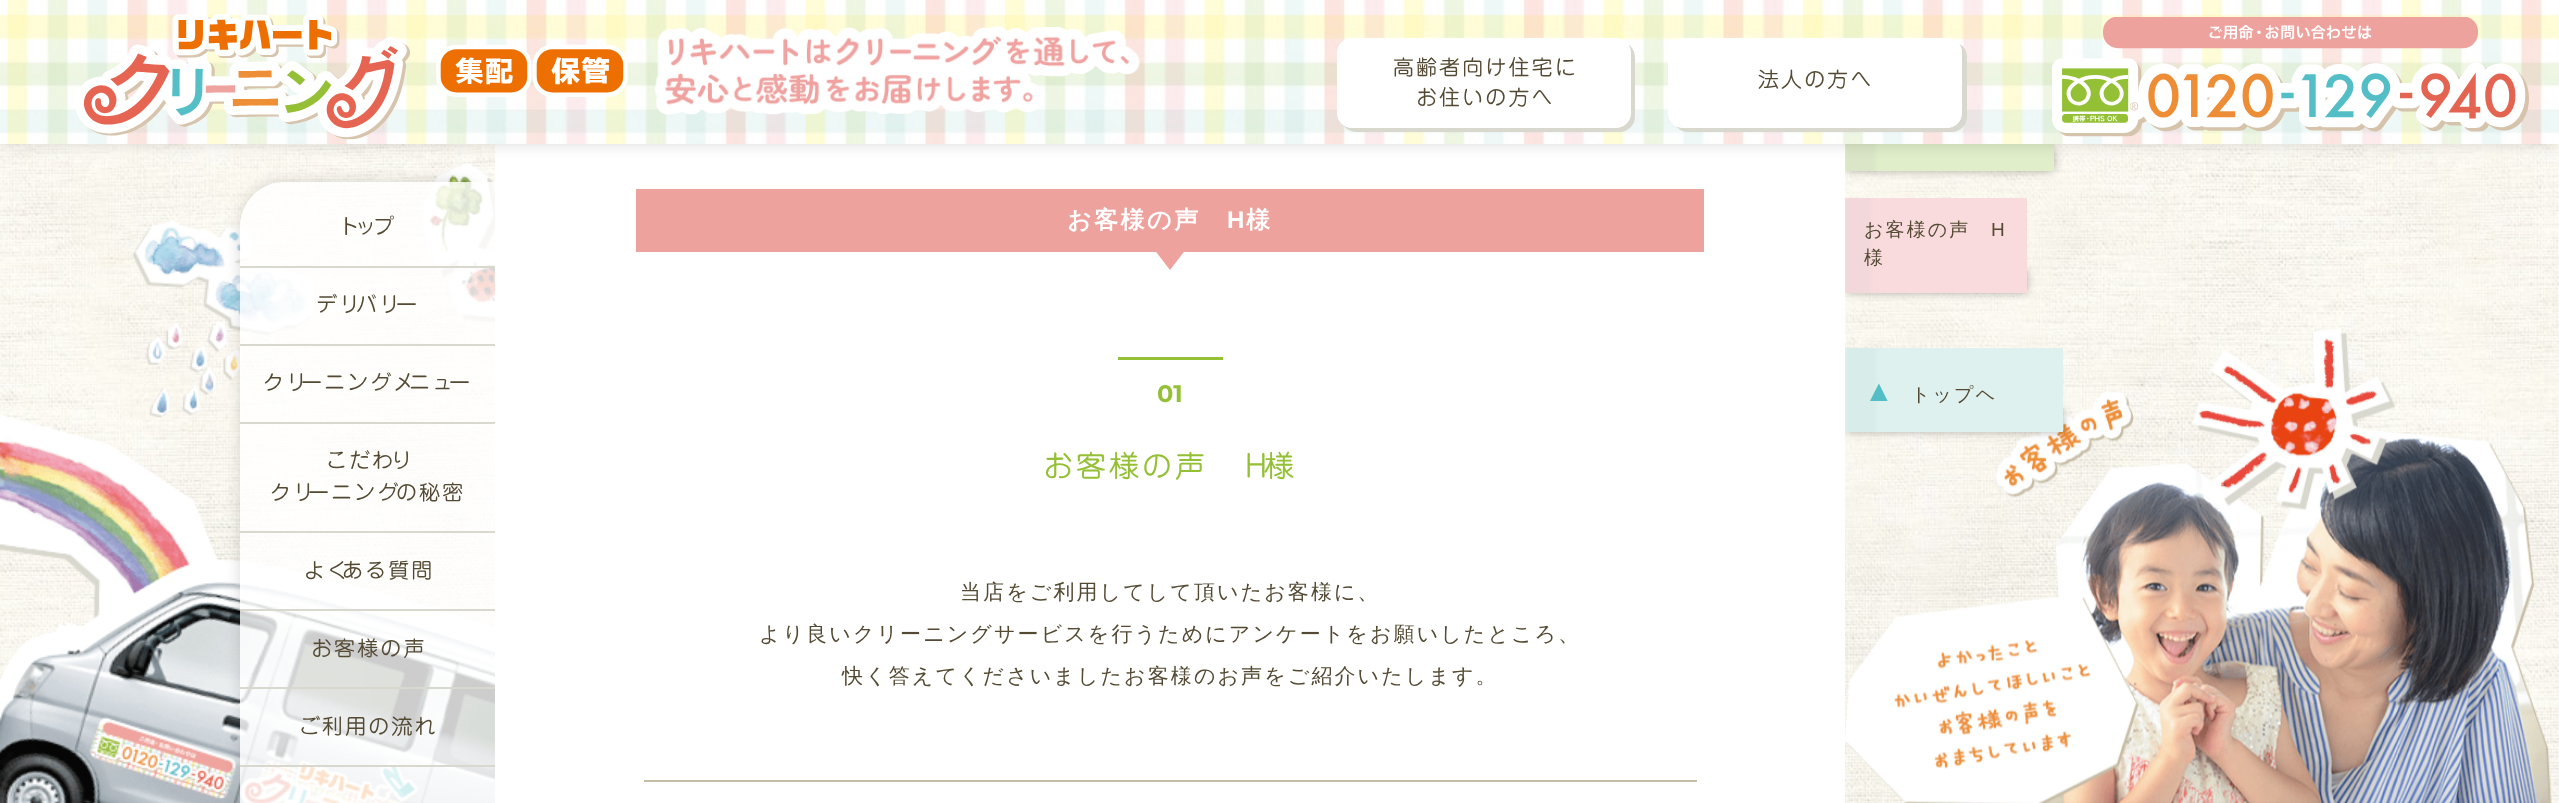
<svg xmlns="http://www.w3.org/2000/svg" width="2559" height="803">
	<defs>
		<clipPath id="clip1"><path d="M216 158H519V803H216ZM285 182H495V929H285C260 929 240 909 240 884V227C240 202 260 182 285 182Z" clip-rule="evenodd" /></clipPath>
		<linearGradient id="g1" gradientUnits="userSpaceOnUse" x1="1845" y1="138" x2="2054" y2="138"><stop offset="0" stop-color="#E0EECA" /><stop offset="0.01" stop-color="#DAE6C7" /><stop offset="0.13" stop-color="#DAE6C7" /><stop offset="0.16" stop-color="#E0EECA" /></linearGradient>
		<linearGradient id="g2" gradientUnits="userSpaceOnUse" x1="1845" y1="245" x2="2027" y2="245"><stop offset="0" stop-color="#F9DBDD" /><stop offset="0.01" stop-color="#F2D8DA" /><stop offset="0.13" stop-color="#F2D8DA" /><stop offset="0.16" stop-color="#F9DBDD" /></linearGradient>
		<linearGradient id="g3" gradientUnits="userSpaceOnUse" x1="1845" y1="390" x2="2063" y2="390"><stop offset="0" stop-color="#DEF1EF" /><stop offset="0.01" stop-color="#D8ECEA" /><stop offset="0.13" stop-color="#D8ECEA" /><stop offset="0.16" stop-color="#DEF1EF" /></linearGradient>
	</defs>
	<rect width="100%" height="100%" fill="#FFFFFF" />
	<image x="0" y="144" width="2559" height="659" href="assets/img1.png" />
	<image x="0" y="162" width="495" height="641" href="assets/img6.png" />
	<g clip-path="url(#clip1)">
		<rect x="240" y="182" width="255" height="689" rx="45" fill="#000000" fill-opacity="0.15" filter="blur(7.5px)" />
	</g>
	<rect x="1847" y="149" width="207" height="22" fill="#000000" fill-opacity="0.3" filter="blur(4px)" />
	<rect x="1847" y="270" width="180" height="23" fill="#000000" fill-opacity="0.3" filter="blur(4px)" />
	<image x="1845" y="327" width="707" height="476" href="assets/img7.png" />
	<rect x="1847" y="410" width="216" height="22" fill="#000000" fill-opacity="0.3" filter="blur(4px)" />
	<rect x="495" y="144" width="1350" height="659" fill="#FFFFFF" />
	<rect x="1845" y="144" width="209" height="27" fill="url(#g1)" />
	<rect x="0" y="0" width="2559" height="144" fill="#000000" fill-opacity="0.15" filter="blur(7.5px)" />
	<image x="0" y="0" width="2559" height="144" href="assets/img2.png" />
	<image x="76" y="14" width="552" height="126" href="assets/img3.png" />
	<image x="654" y="26" width="486" height="89" href="assets/img4.png" />
	<path d="M1343 125C1346 129 1351 132 1356 132H1620C1628 132 1635 125 1635 117V57C1635 52 1632 47 1628 44C1630 47 1630 50 1630 52V112C1630 121 1624 128 1616 128H1352C1349 128 1346 127 1343 125Z" fill="#D9D8CF" />
	<rect x="1337" y="38" width="294" height="90" rx="15" fill="#FFFFFF" />
	<g font-family="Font" font-size="21" letter-spacing="2.1" fill="#544A34">
		<text x="1393" y="75">高齢者向け住宅に</text>
		<text x="1416" y="105">お住いの方へ</text>
	</g>
	<path d="M1676 126C1678 129 1683 132 1688 132H1952C1960 132 1967 125 1967 117V57C1967 51 1964 46 1959 44C1961 46 1962 49 1962 52V112C1962 121 1955 128 1947 128H1683C1680 128 1678 127 1676 126Z" fill="#D9D8CF" />
	<rect x="1668" y="38" width="294" height="90" rx="15" fill="#FFFFFF" />
	<text x="1758" y="87" font-family="Font" font-size="21" letter-spacing="2.1" fill="#544A34">法人の方へ</text>
	<image x="2052" y="17" width="477" height="120" href="assets/img5.png" />
	<path d="M285 182H495V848H285C260 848 240 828 240 803V227C240 202 260 182 285 182Z" fill="#FFFFFF" fill-opacity="0.8" />
	<rect x="240" y="266" width="255" height="2" fill="#D9D8CF" />
	<text x="339" y="234" font-family="Font" font-size="21" letter-spacing="2.1" fill="#544A34">ト</text>
	<text x="355" y="234" font-family="Font" font-size="21" letter-spacing="2.1" fill="#544A34">ッ</text>
	<text x="373" y="234" font-family="Font" font-size="21" letter-spacing="2.1" fill="#544A34">プ</text>
	<rect x="240" y="344" width="255" height="2" fill="#D9D8CF" />
	<text x="316" y="312" font-family="Font" font-size="21" letter-spacing="2.1" fill="#544A34">デリ</text>
	<text x="356" y="312" font-family="Font" font-size="21" letter-spacing="2.1" fill="#544A34">バリ</text>
	<text x="396" y="312" font-family="Font" font-size="21" letter-spacing="2.1" fill="#544A34">ー</text>
	<rect x="240" y="422" width="255" height="2" fill="#D9D8CF" />
	<text x="263" y="390" font-family="Font" font-size="21" letter-spacing="2.1" fill="#544A34">クリ</text>
	<text x="301" y="390" font-family="Font" font-size="21" letter-spacing="2.1" fill="#544A34">ーニングメ</text>
	<text x="409" y="390" font-family="Font" font-size="21" letter-spacing="2.1" fill="#544A34">ニュ</text>
	<text x="449" y="390" font-family="Font" font-size="21" letter-spacing="2.1" fill="#544A34">ー</text>
	<rect x="240" y="531" width="255" height="2" fill="#D9D8CF" />
	<g font-family="Font" font-size="21" letter-spacing="2.1" fill="#544A34">
		<text x="326" y="468">こだわ</text>
		<text x="391" y="468">り</text>
		<text x="270" y="500">クリ</text>
		<text x="308" y="500">ーニング</text>
		<text x="396" y="500">の秘密</text>
	</g>
	<rect x="240" y="609" width="255" height="2" fill="#D9D8CF" />
	<text x="304" y="578" font-family="Font" font-size="21" letter-spacing="2.1" fill="#544A34">よく</text>
	<text x="342" y="578" font-family="Font" font-size="21" letter-spacing="2.1" fill="#544A34">ある質問</text>
	<rect x="240" y="687" width="255" height="2" fill="#D9D8CF" />
	<text x="311" y="656" font-family="Font" font-size="21" letter-spacing="2.1" fill="#544A34">お客様の声</text>
	<rect x="240" y="765" width="255" height="2" fill="#D9D8CF" />
	<text x="299" y="734" font-family="Font" font-size="21" letter-spacing="2.1" fill="#544A34">ご利用の流れ</text>
	<rect x="636" y="189" width="1068" height="63" fill="#EEA29E" />
	<text x="1067" y="228" font-family="WenQuanYi Zen Hei" font-size="24" font-weight="700" letter-spacing="2.5" fill="#FFFFFF">お客様の声</text>
	<text x="1227" y="228" font-family="Liberation Sans" font-size="24" font-weight="700" letter-spacing="2.5" fill="#FFFFFF">H</text>
	<text x="1246" y="228" font-family="WenQuanYi Zen Hei" font-size="24" font-weight="700" letter-spacing="2.5" fill="#FFFFFF">様</text>
	<path d="M1155 250.5H1185L1170 270Z" fill="#EEA29E" />
	<rect x="1118" y="357" width="105" height="3" fill="#94C035" />
	<text x="1157" y="402" font-family="Montserrat" font-size="24" font-weight="700" fill="#94C035">01</text>
	<text x="1043" y="477" font-family="Font" font-size="30" letter-spacing="3" fill="#94C035">お客様の声　Ｈ</text>
	<text x="1264" y="477" font-family="Font" font-size="30" letter-spacing="3" fill="#94C035">様</text>
	<g font-family="WenQuanYi Zen Hei" font-size="21" font-weight="500" letter-spacing="2.1" fill="#544A34">
		<text x="960" y="599">当店をご利用してして頂いたお客様に、</text>
		<text x="759" y="641">より良いクリーニングサービスを行うためにアンケートをお願いしたところ、</text>
		<text x="842" y="683">快く答えてくださいましたお客様のお声をご紹介いたします。</text>
	</g>
	<rect x="644" y="780" width="1053" height="2" fill="#C7BDA5" />
	<rect x="1845" y="198" width="182" height="95" fill="url(#g2)" />
	<text x="1864" y="236" font-family="WenQuanYi Zen Hei" font-size="19" font-weight="500" letter-spacing="2.1" fill="#544A34">お客様の声</text>
	<text x="1991" y="236" font-family="Liberation Sans" font-size="19" letter-spacing="2.1" fill="#544A34">H</text>
	<text x="1864" y="264" font-family="WenQuanYi Zen Hei" font-size="19" font-weight="500" letter-spacing="2.1" fill="#544A34">様</text>
	<rect x="1845" y="348" width="218" height="84" fill="url(#g3)" />
	<text x="1864" y="401" font-family="Liberation Sans" font-size="30" letter-spacing="2.1" fill="#53BEC5">▲</text>
	<text x="1911" y="401" font-family="WenQuanYi Zen Hei" font-size="19" font-weight="500" letter-spacing="2.1" fill="#544A34">トップヘ</text>
</svg>
